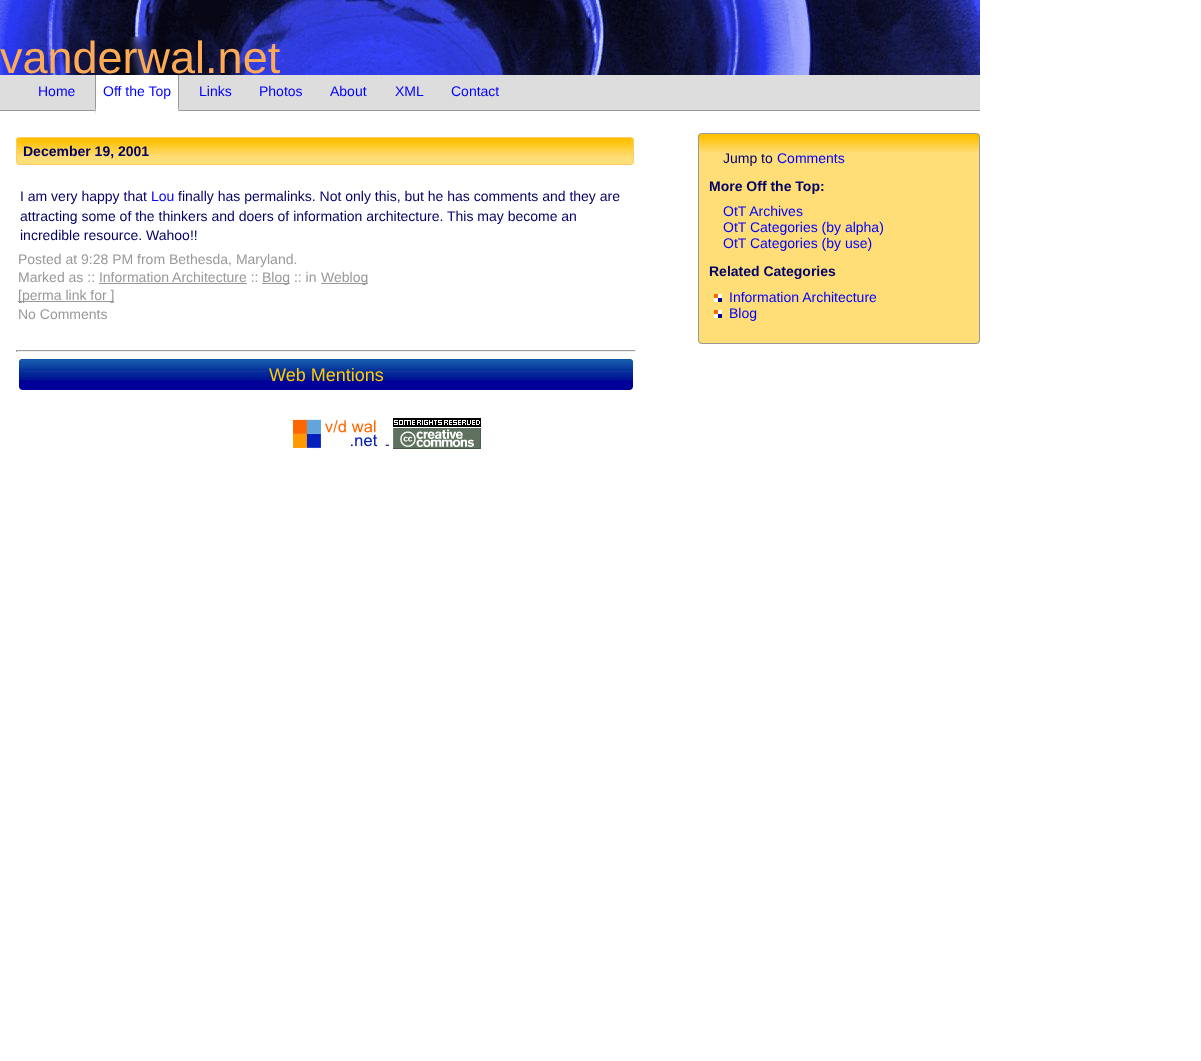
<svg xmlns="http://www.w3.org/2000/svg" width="1201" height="1061">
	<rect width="100%" height="100%" fill="#FFFFFF" />
	<image x="0" y="0" width="980" height="75" href="assets/img1.png" />
	<text x="0" y="73" font-family="Liberation Sans" font-size="45" fill="#FFAA55">vanderwal.net</text>
	<rect x="0" y="75" width="980" height="35" fill="#DDDDDD" />
	<rect x="0" y="110" width="980" height="1" fill="#999999" />
	<text x="38" y="96" font-family="Liberation Sans" font-size="14" fill="#0000FF">Home</text>
	<rect x="95" y="75" width="84" height="36" fill="#FFFFFF" />
	<text x="103" y="96" font-family="Liberation Sans" font-size="14" fill="#0000FF">Off the Top</text>
	<path d="M179 75V114L178 108V75Z" fill="#999999" />
	<path d="M179 114H95L96 108H178Z" fill="#FFFFFF" />
	<path d="M95 114V75H96V108Z" fill="#999999" />
	<g font-family="Liberation Sans" font-size="14" fill="#0000FF">
		<text x="199" y="96">Links</text>
		<text x="259" y="96">Photos</text>
		<text x="330" y="96">About</text>
		<text x="395" y="96">XML</text>
		<text x="451" y="96">Contact</text>
	</g>
	<rect x="16" y="137" width="618" height="28" rx="4" fill="#FFDD77" />
	<image x="16" y="138" width="618" height="19" href="assets/img2.png" />
	<rect x="16.5" y="137.5" width="617" height="27" rx="3.5" fill="none" stroke="#FFCC66" />
	<text x="23" y="156" font-family="Liberation Sans" font-size="14" font-weight="700" fill="#000066">December 19, 2001</text>
	<text x="20" y="201" font-family="Liberation Sans" font-size="14" fill="#000066">I am very happy that</text>
	<text x="151" y="201" font-family="Liberation Sans" font-size="14" fill="#0000FF">Lou</text>
	<g font-family="Liberation Sans" font-size="14" fill="#000066">
		<text x="178" y="201">finally has permalinks. Not only this, but he has comments and they are</text>
		<text x="20" y="221">attracting some of the thinkers and doers of information architecture. This may become an</text>
		<text x="20" y="240">incredible resource. Wahoo!!</text>
	</g>
	<g font-family="Liberation Sans" font-size="14" fill="#999999">
		<text x="18" y="264">Posted at 9:28 PM from Bethesda, Maryland.</text>
		<text x="18" y="282">Marked as :: Information Architecture ::</text>
	</g>
	<rect x="262" y="283" width="28" height="1" fill="#999999" />
	<text x="262" y="282" font-family="Liberation Sans" font-size="14" fill="#999999">Blog :: in</text>
	<rect x="321" y="283" width="47" height="1" fill="#999999" />
	<text x="321" y="282" font-family="Liberation Sans" font-size="14" fill="#999999">Weblog</text>
	<rect x="99" y="283" width="148" height="1" fill="#999999" />
	<rect x="18" y="301" width="96" height="1" fill="#999999" />
	<g font-family="Liberation Sans" font-size="14" fill="#999999">
		<text x="18" y="300">[perma link for ]</text>
		<text x="18" y="319">No Comments</text>
	</g>
	<rect x="16" y="350" width="620" height="1" fill="#9F9F9F" />
	<rect x="635" y="350" width="1" height="2" fill="#EEEEEE" />
	<rect x="16" y="351" width="620" height="1" fill="#EEEEEE" />
	<rect x="16" y="350" width="1" height="2" fill="#9F9F9F" />
	<rect x="19" y="359" width="614" height="31" rx="4" fill="#000099" />
	<image x="19" y="359" width="614" height="21" href="assets/img3.png" />
	<text x="269" y="381" font-family="Liberation Sans" font-size="18" fill="#FFCC00">Web Mentions</text>
	<image x="293" y="419" width="87" height="30" href="assets/img4.png" />
	<text x="385" y="449" font-family="Liberation Sans" font-size="14" fill="#000066">-</text>
	<image x="393" y="418" width="88" height="31" href="assets/img5.png" />
	<rect x="698" y="133" width="282" height="211" rx="4" fill="#FFDD77" />
	<image x="698" y="134" width="282" height="19" href="assets/img6.png" />
	<rect x="698.5" y="133.5" width="281" height="210" rx="3.5" fill="none" stroke="#999999" />
	<text x="723" y="163" font-family="Liberation Sans" font-size="14" fill="#000066">Jump to</text>
	<text x="777" y="163" font-family="Liberation Sans" font-size="14" fill="#0000FF">Comments</text>
	<text x="709" y="191" font-family="Liberation Sans" font-size="14" font-weight="700" fill="#000066">More Off the Top:</text>
	<g font-family="Liberation Sans" font-size="14" fill="#0000FF">
		<text x="723" y="216">OtT Archives</text>
		<text x="723" y="232">OtT Categories (by alpha)</text>
		<text x="723" y="248">OtT Categories (by use)</text>
	</g>
	<text x="709" y="276" font-family="Liberation Sans" font-size="14" font-weight="700" fill="#000066">Related Categories</text>
	<image x="714" y="294" width="8" height="8" href="assets/img7.png" />
	<text x="729" y="302" font-family="Liberation Sans" font-size="14" fill="#0000FF">Information Architecture</text>
	<image x="714" y="310" width="8" height="8" href="assets/img7.png" />
	<text x="729" y="318" font-family="Liberation Sans" font-size="14" fill="#0000FF">Blog</text>
</svg>
